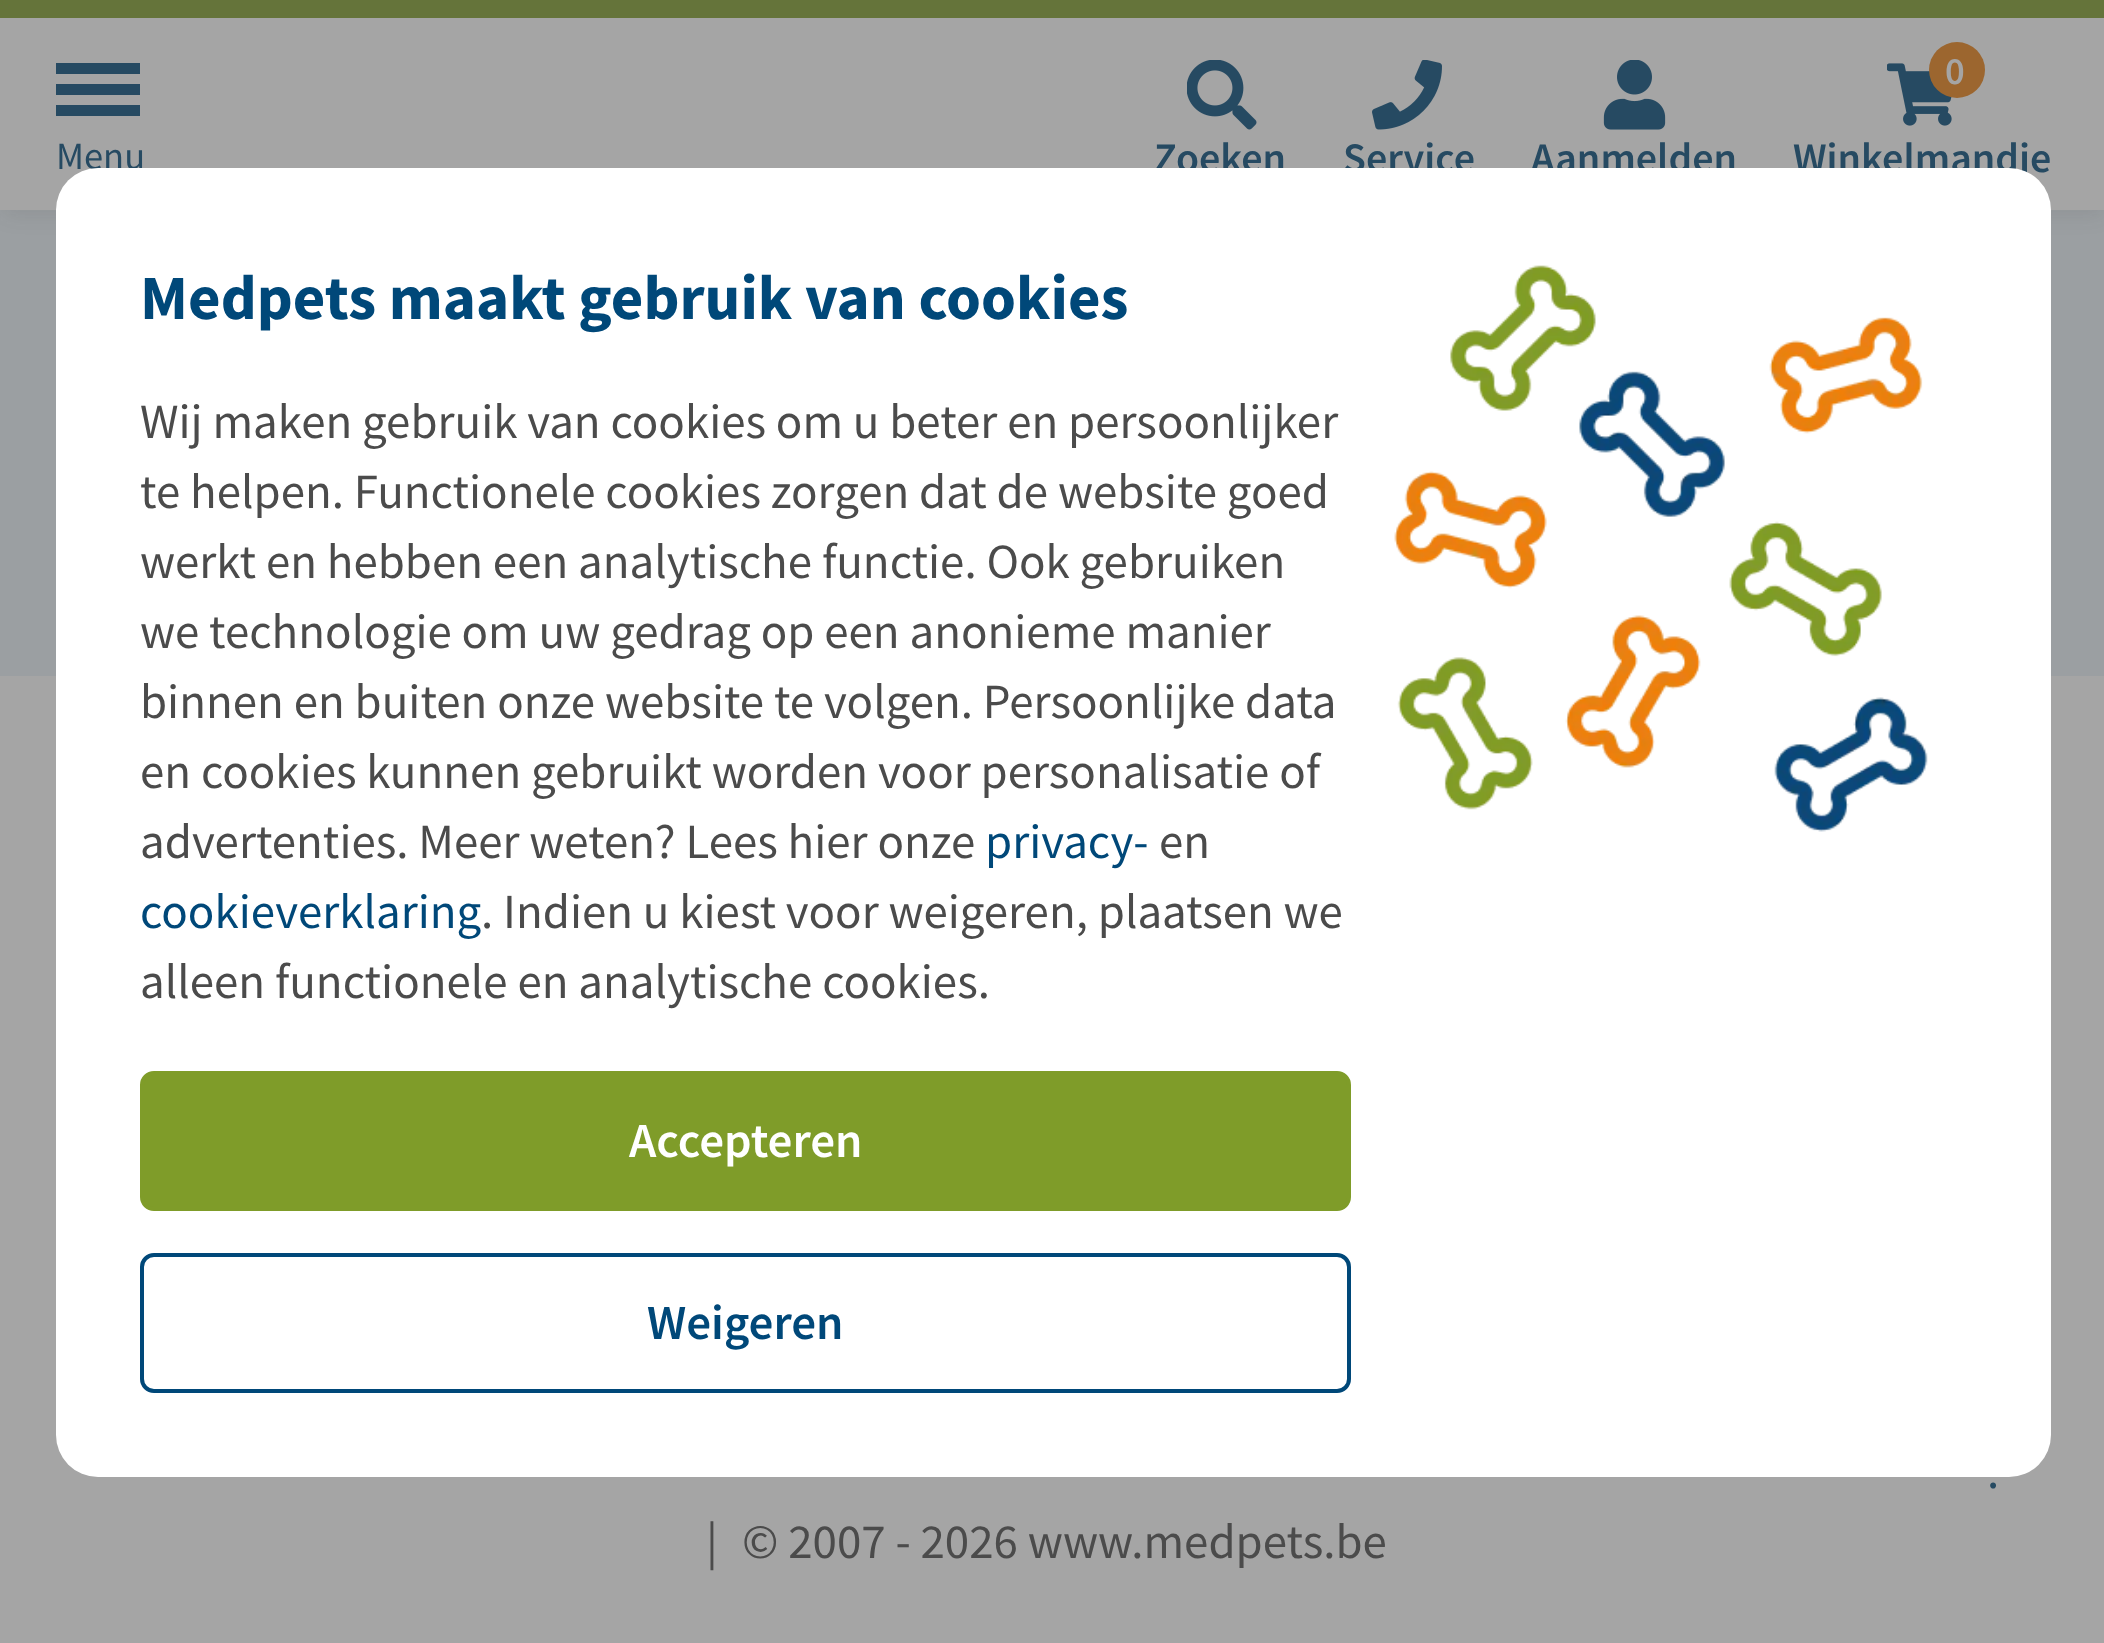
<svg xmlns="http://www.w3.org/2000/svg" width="2104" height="1643">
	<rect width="100%" height="100%" fill="#A5A5A5" />
	<rect x="0" y="210" width="2104" height="466" fill="#9B9FA2" />
	<rect x="4" y="11" width="2100" height="203" fill="#262626" fill-opacity="0.1" filter="blur(10.5px)" />
	<rect x="0" y="18" width="2104" height="192" fill="#A5A5A5" />
	<rect x="0" y="0" width="2104" height="18" fill="#65743A" />
	<rect x="56" y="63" width="84" height="11" fill="#264A62" />
	<rect x="56" y="84" width="84" height="11" fill="#264A62" />
	<rect x="56" y="105" width="84" height="11" fill="#264A62" />
	<text x="56" y="169" font-family="Source Sans Pro" font-size="38.5" fill="#264A62">Menu</text>
	<image x="1187" y="60" width="70" height="70" href="assets/img1.png" />
	<text x="1154" y="172" font-family="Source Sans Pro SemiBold" font-size="42" font-weight="600" fill="#264A62">Zoeken</text>
	<image x="1372" y="60" width="70" height="70" href="assets/img2.png" />
	<text x="1343" y="172" font-family="Source Sans Pro SemiBold" font-size="42" font-weight="600" fill="#264A62">Service</text>
	<image x="1603" y="60" width="63" height="70" href="assets/img3.png" />
	<text x="1531" y="172" font-family="Source Sans Pro SemiBold" font-size="42" font-weight="600" fill="#264A62">Aanmelden</text>
	<image x="1887" y="63" width="65" height="63" href="assets/img4.png" />
	<circle cx="1957" cy="70" r="28" fill="#9C662F" />
	<text x="1945" y="84" font-family="Source Sans Pro SemiBold" font-size="38.5" font-weight="600" fill="#A5A5A5">0</text>
	<text x="1793" y="172" font-family="Source Sans Pro SemiBold" font-size="42" font-weight="600" fill="#264A62">Winkelmandje</text>
	<rect x="56" y="168" width="1995" height="1309" rx="42" fill="#FFFFFF" />
	<text x="140" y="319" font-family="Source Sans Pro" font-size="63" font-weight="700" fill="#004879">Medpets maakt gebruik van cookies</text>
	<g font-family="Source Sans Pro" font-size="49" fill="#4B4B4B">
		<text x="140" y="438">Wij maken gebruik van cookies om u beter en persoonlijker</text>
		<text x="140" y="508">te helpen. Functionele cookies zorgen dat de website goed</text>
		<text x="140" y="578">werkt en hebben een analytische functie. Ook gebruiken</text>
		<text x="140" y="648">we technologie om uw gedrag op een anonieme manier</text>
		<text x="140" y="718">binnen en buiten onze website te volgen. Persoonlijke data</text>
		<text x="140" y="788">en cookies kunnen gebruikt worden voor personalisatie of</text>
		<text x="140" y="858">advertenties. Meer weten? Lees hier onze</text>
	</g>
	<text x="985" y="858" font-family="Source Sans Pro" font-size="49" fill="#004879">privacy-</text>
	<text x="1159" y="858" font-family="Source Sans Pro" font-size="49" fill="#4B4B4B">en</text>
	<text x="140" y="928" font-family="Source Sans Pro" font-size="49" fill="#004879">cookieverklaring</text>
	<g font-family="Source Sans Pro" font-size="49" fill="#4B4B4B">
		<text x="481" y="928">. Indien u kiest voor weigeren, plaatsen we</text>
		<text x="140" y="998">alleen functionele en analytische cookies.</text>
	</g>
	<rect x="142" y="1073" width="1207" height="136" rx="12" fill="#7F9C29" stroke="#7F9C29" stroke-width="4" />
	<text x="629" y="1157" font-family="Source Sans Pro SemiBold" font-size="49" font-weight="600" fill="#FFFFFF">Accepteren</text>
	<rect x="142" y="1255" width="1207" height="136" rx="12" fill="none" stroke="#004879" stroke-width="4" />
	<text x="647" y="1339" font-family="Source Sans Pro SemiBold" font-size="49" font-weight="600" fill="#004879">Weigeren</text>
	<image x="1394" y="265" width="534" height="567" href="assets/img5.png" />
	<text x="1987" y="1488" font-family="Source Sans Pro" font-size="49" fill="#264A62">.</text>
	<g font-family="Source Sans Pro" font-size="49" fill="#4B4B4B">
		<text x="706" y="1558">|</text>
		<text x="742" y="1558">© 2007 - 2026 www.medpets.be</text>
	</g>
</svg>
